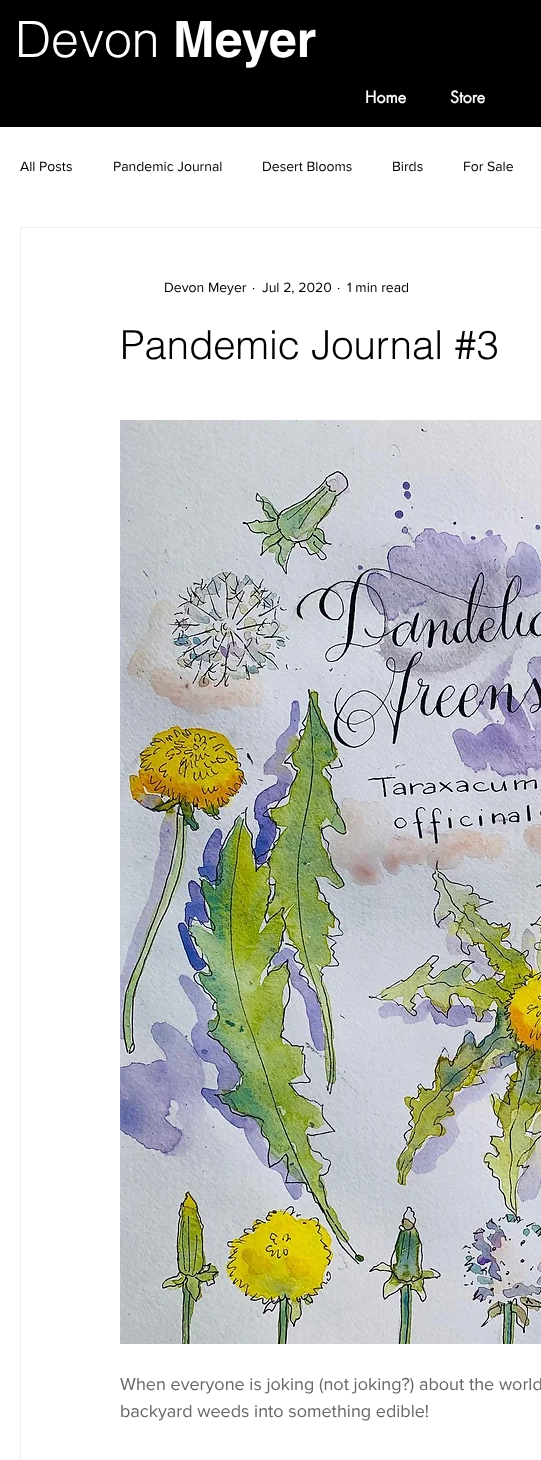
<svg xmlns="http://www.w3.org/2000/svg" width="541" height="1460">
	<rect width="100%" height="100%" fill="#FFFFFF" />
	<rect x="0" y="0" width="541" height="127" fill="#000000" />
	<text x="15" y="57" font-family="helvetica" font-size="50" font-weight="300" fill="#FFFFFF">Devon</text>
	<text x="173" y="57" font-family="helvetica" font-size="50" font-weight="700" fill="#FFFFFF">Meyer</text>
	<g font-family="futura" font-size="16" font-weight="700" fill="#FFFFFF">
		<text x="365" y="103">Home</text>
		<text x="450" y="103">Store</text>
	</g>
	<g font-family="'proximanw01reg'" font-size="14" fill="#000000">
		<text x="20" y="171">All Posts</text>
		<text x="113" y="171">Pandemic Journal</text>
		<text x="262" y="171">Desert Blooms</text>
		<text x="392" y="171">Birds</text>
		<text x="463" y="171">For Sale</text>
	</g>
	<rect x="20.5" y="227.5" width="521" height="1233" fill="none" stroke="#EEECEC" />
	<g font-family="'proximanw01reg'" font-size="14" fill="#000000">
		<text x="164" y="292">Devon Meyer</text>
		<text x="252" y="292">·</text>
		<text x="262" y="292">Jul 2, 2020</text>
		<text x="337" y="292">·</text>
		<text x="347" y="292">1 min read</text>
	</g>
	<text x="120" y="359" font-family="helvetica" font-size="40" font-weight="300" fill="#000000">Pandemic Journal #3</text>
	<image x="120" y="420" width="421" height="924" href="assets/img1.png" />
	<g font-family="'proximanw01reg'" font-size="18" fill="#666666">
		<text x="120" y="1390">When everyone is joking (not joking?) about the world</text>
		<text x="120" y="1417">backyard weeds into something edible!</text>
	</g>
</svg>
